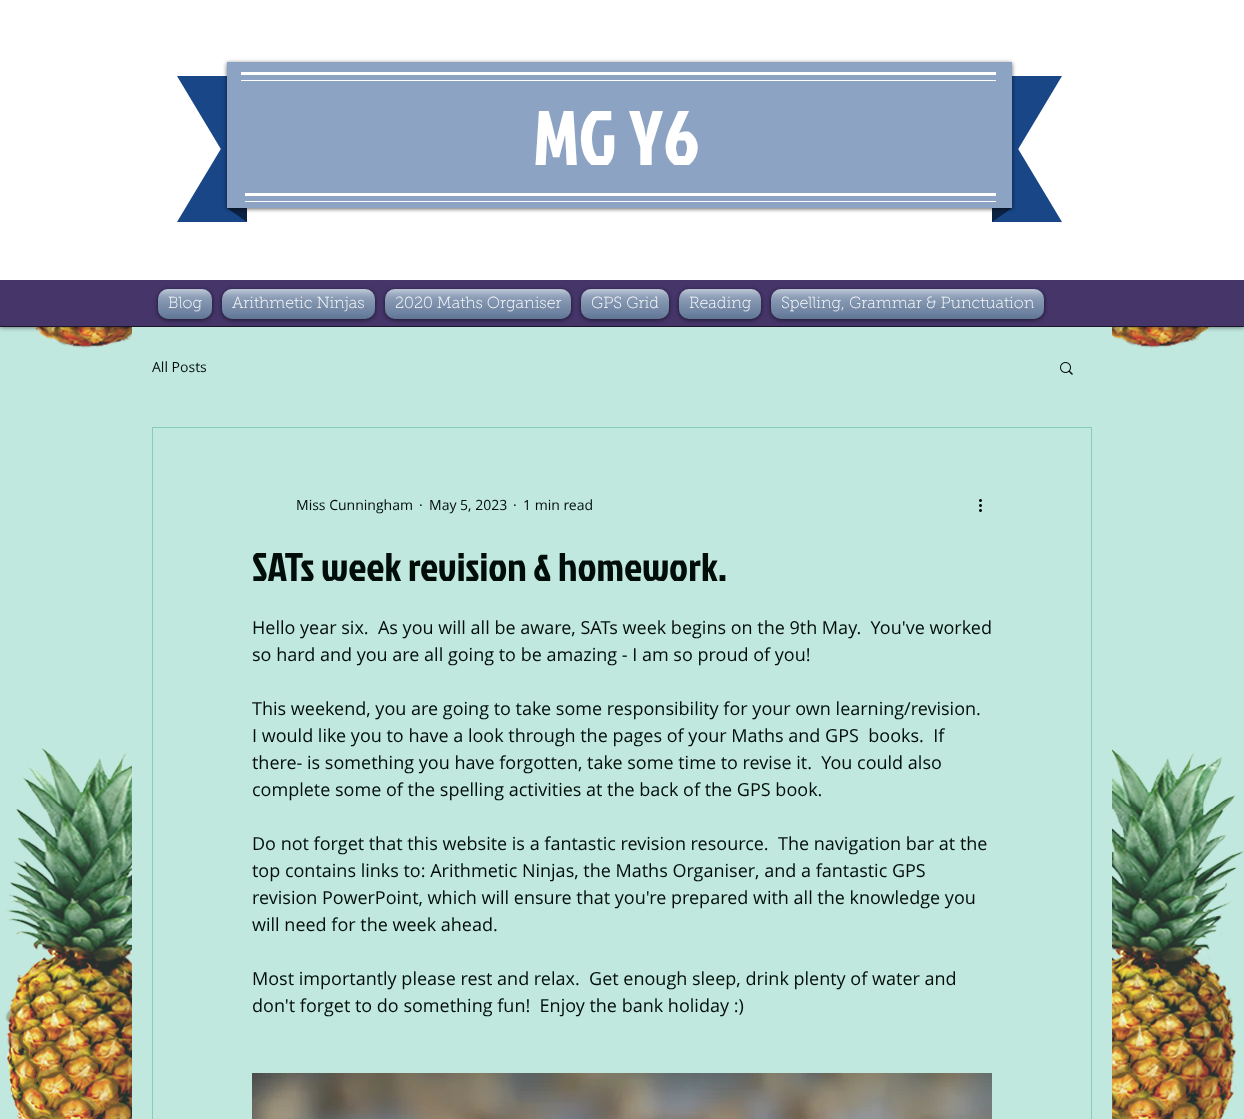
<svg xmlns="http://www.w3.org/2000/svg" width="1244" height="1119">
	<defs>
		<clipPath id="clip1"><rect x="177" y="149" width="885" height="73" /></clipPath>
	</defs>
	<rect width="100%" height="100%" fill="#C0E8DE" />
	<image x="5" y="327" width="1239" height="792" href="assets/img16.png" />
	<rect x="0" y="2" width="1244" height="325" fill="#000000" fill-opacity="0.6" filter="blur(2.5px)" />
	<rect x="0" y="280" width="1244" height="46" fill="#453569" />
	<rect x="0" y="326" width="1244" height="1" fill="#1C152A" />
	<rect x="0" y="0" width="1244" height="280" fill="#FFFFFF" />
	<path d="M177 76H247V176H237Z" fill="#184687" />
	<path d="M992 76H1062L1002 176H992Z" fill="#184687" />
	<g clip-path="url(#clip1)">
		<path d="M247 222H177L237 122H247Z" fill="#184687" />
		<path d="M1062 222H992V122H1002Z" fill="#184687" />
	</g>
	<path d="M247 208V222L227 208Z" fill="#0C2343" />
	<path d="M992 222V208H1012Z" fill="#0C2343" />
	<rect x="227" y="63" width="785" height="146" fill="#000000" fill-opacity="0.6" filter="blur(2px)" />
	<rect x="227" y="62" width="785" height="146" fill="#8DA3C3" />
	<rect x="241" y="72" width="755" height="3" fill="#FFFFFF" />
	<rect x="241" y="80" width="755" height="1" fill="#FFFFFF" />
	<text x="533" y="165" font-family="Jockey One" font-size="77" fill="#FFFFFF">MG Y6</text>
	<rect x="245" y="193" width="751" height="3" fill="#FFFFFF" />
	<rect x="245" y="201" width="751" height="1" fill="#FFFFFF" />
	<rect x="158" y="290" width="54" height="30" rx="10" fill="#000000" fill-opacity="0.6" filter="blur(2px)" />
	<rect x="158" y="289" width="54" height="30" rx="10" fill="#617DA5" />
	<image x="158" y="289" width="54" height="30" href="assets/img1.png" />
	<image x="158" y="289" width="54" height="30" href="assets/img2.png" />
	<text x="168" y="308" font-family="'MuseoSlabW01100'" font-size="16" font-weight="100" fill="#FFFFFF">Blog</text>
	<rect x="222" y="290" width="153" height="30" rx="10" fill="#000000" fill-opacity="0.6" filter="blur(2px)" />
	<rect x="222" y="289" width="153" height="30" rx="10" fill="#617DA5" />
	<image x="222" y="289" width="153" height="30" href="assets/img3.png" />
	<image x="222" y="289" width="153" height="30" href="assets/img4.png" />
	<text x="232" y="308" font-family="'MuseoSlabW01100'" font-size="16" font-weight="100" fill="#FFFFFF">Arithmetic Ninjas</text>
	<rect x="385" y="290" width="186" height="30" rx="10" fill="#000000" fill-opacity="0.6" filter="blur(2px)" />
	<rect x="385" y="289" width="186" height="30" rx="10" fill="#617DA5" />
	<image x="385" y="289" width="186" height="30" href="assets/img5.png" />
	<image x="385" y="289" width="186" height="30" href="assets/img6.png" />
	<text x="395" y="308" font-family="'MuseoSlabW01100'" font-size="16" font-weight="100" fill="#FFFFFF">2020 Maths Organiser</text>
	<rect x="581" y="290" width="88" height="30" rx="10" fill="#000000" fill-opacity="0.6" filter="blur(2px)" />
	<rect x="581" y="289" width="88" height="30" rx="10" fill="#617DA5" />
	<image x="581" y="289" width="88" height="30" href="assets/img7.png" />
	<image x="581" y="289" width="88" height="30" href="assets/img8.png" />
	<text x="591" y="308" font-family="'MuseoSlabW01100'" font-size="16" font-weight="100" fill="#FFFFFF">GPS Grid</text>
	<rect x="679" y="290" width="82" height="30" rx="10" fill="#000000" fill-opacity="0.6" filter="blur(2px)" />
	<rect x="679" y="289" width="82" height="30" rx="10" fill="#617DA5" />
	<image x="679" y="289" width="82" height="30" href="assets/img9.png" />
	<image x="679" y="289" width="82" height="30" href="assets/img10.png" />
	<text x="689" y="308" font-family="'MuseoSlabW01100'" font-size="16" font-weight="100" fill="#FFFFFF">Reading</text>
	<rect x="771" y="290" width="273" height="30" rx="10" fill="#000000" fill-opacity="0.6" filter="blur(2px)" />
	<rect x="771" y="289" width="273" height="30" rx="10" fill="#617DA5" />
	<image x="771" y="289" width="273" height="30" href="assets/img11.png" />
	<image x="771" y="289" width="273" height="30" href="assets/img12.png" />
	<text x="781" y="308" font-family="'MuseoSlabW01100'" font-size="16" font-weight="100" fill="#FFFFFF">Spelling, Grammar &amp; Punctuation</text>
	<rect x="132" y="327" width="980" height="792" fill="#C0E8DE" />
	<text x="152" y="372" font-family="Open Sans" font-size="14" fill="#000D09">All Posts</text>
	<image x="1060" y="362" width="13" height="13" href="assets/img13.png" />
	<rect x="152.5" y="427.5" width="939" height="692" fill="none" stroke="#86CCB8" />
	<g font-family="Open Sans" font-size="14" fill="#000D09">
		<text x="296" y="510">Miss Cunningham</text>
		<text x="419" y="510">·</text>
		<text x="429" y="510">May 5, 2023</text>
		<text x="513" y="510">·</text>
		<text x="523" y="510">1 min read</text>
	</g>
	<image x="979" y="499" width="3" height="13" href="assets/img14.png" />
	<text x="252" y="581" font-family="Jockey One" font-size="40" fill="#000D09">SATs week revision &amp; homework.</text>
	<g font-family="Open Sans" font-size="18" fill="#000D09">
		<text x="252" y="634" xml:space="preserve">Hello year six.  As you will all be aware, SATs week begins on the 9th May.  You've worked</text>
		<text x="252" y="661">so hard and you are all going to be amazing - I am so proud of you!</text>
		<text x="252" y="715">This weekend, you are going to take some responsibility for your own learning/revision.</text>
		<text x="252" y="742" xml:space="preserve">I would like you to have a look through the pages of your Maths and GPS  books.  If</text>
		<text x="252" y="769" xml:space="preserve">there- is something you have forgotten, take some time to revise it.  You could also</text>
		<text x="252" y="796">complete some of the spelling activities at the back of the GPS book.</text>
		<text x="252" y="850" xml:space="preserve">Do not forget that this website is a fantastic revision resource.  The navigation bar at the</text>
		<text x="252" y="877">top contains links to: Arithmetic Ninjas, the Maths Organiser, and a fantastic GPS</text>
		<text x="252" y="904">revision PowerPoint, which will ensure that you're prepared with all the knowledge you</text>
		<text x="252" y="931">will need for the week ahead.</text>
		<text x="252" y="985" xml:space="preserve">Most importantly please rest and relax.  Get enough sleep, drink plenty of water and</text>
		<text x="252" y="1012" xml:space="preserve">don't forget to do something fun!  Enjoy the bank holiday :)</text>
	</g>
	<image x="252" y="1073" width="740" height="46" href="assets/img15.png" />
</svg>
